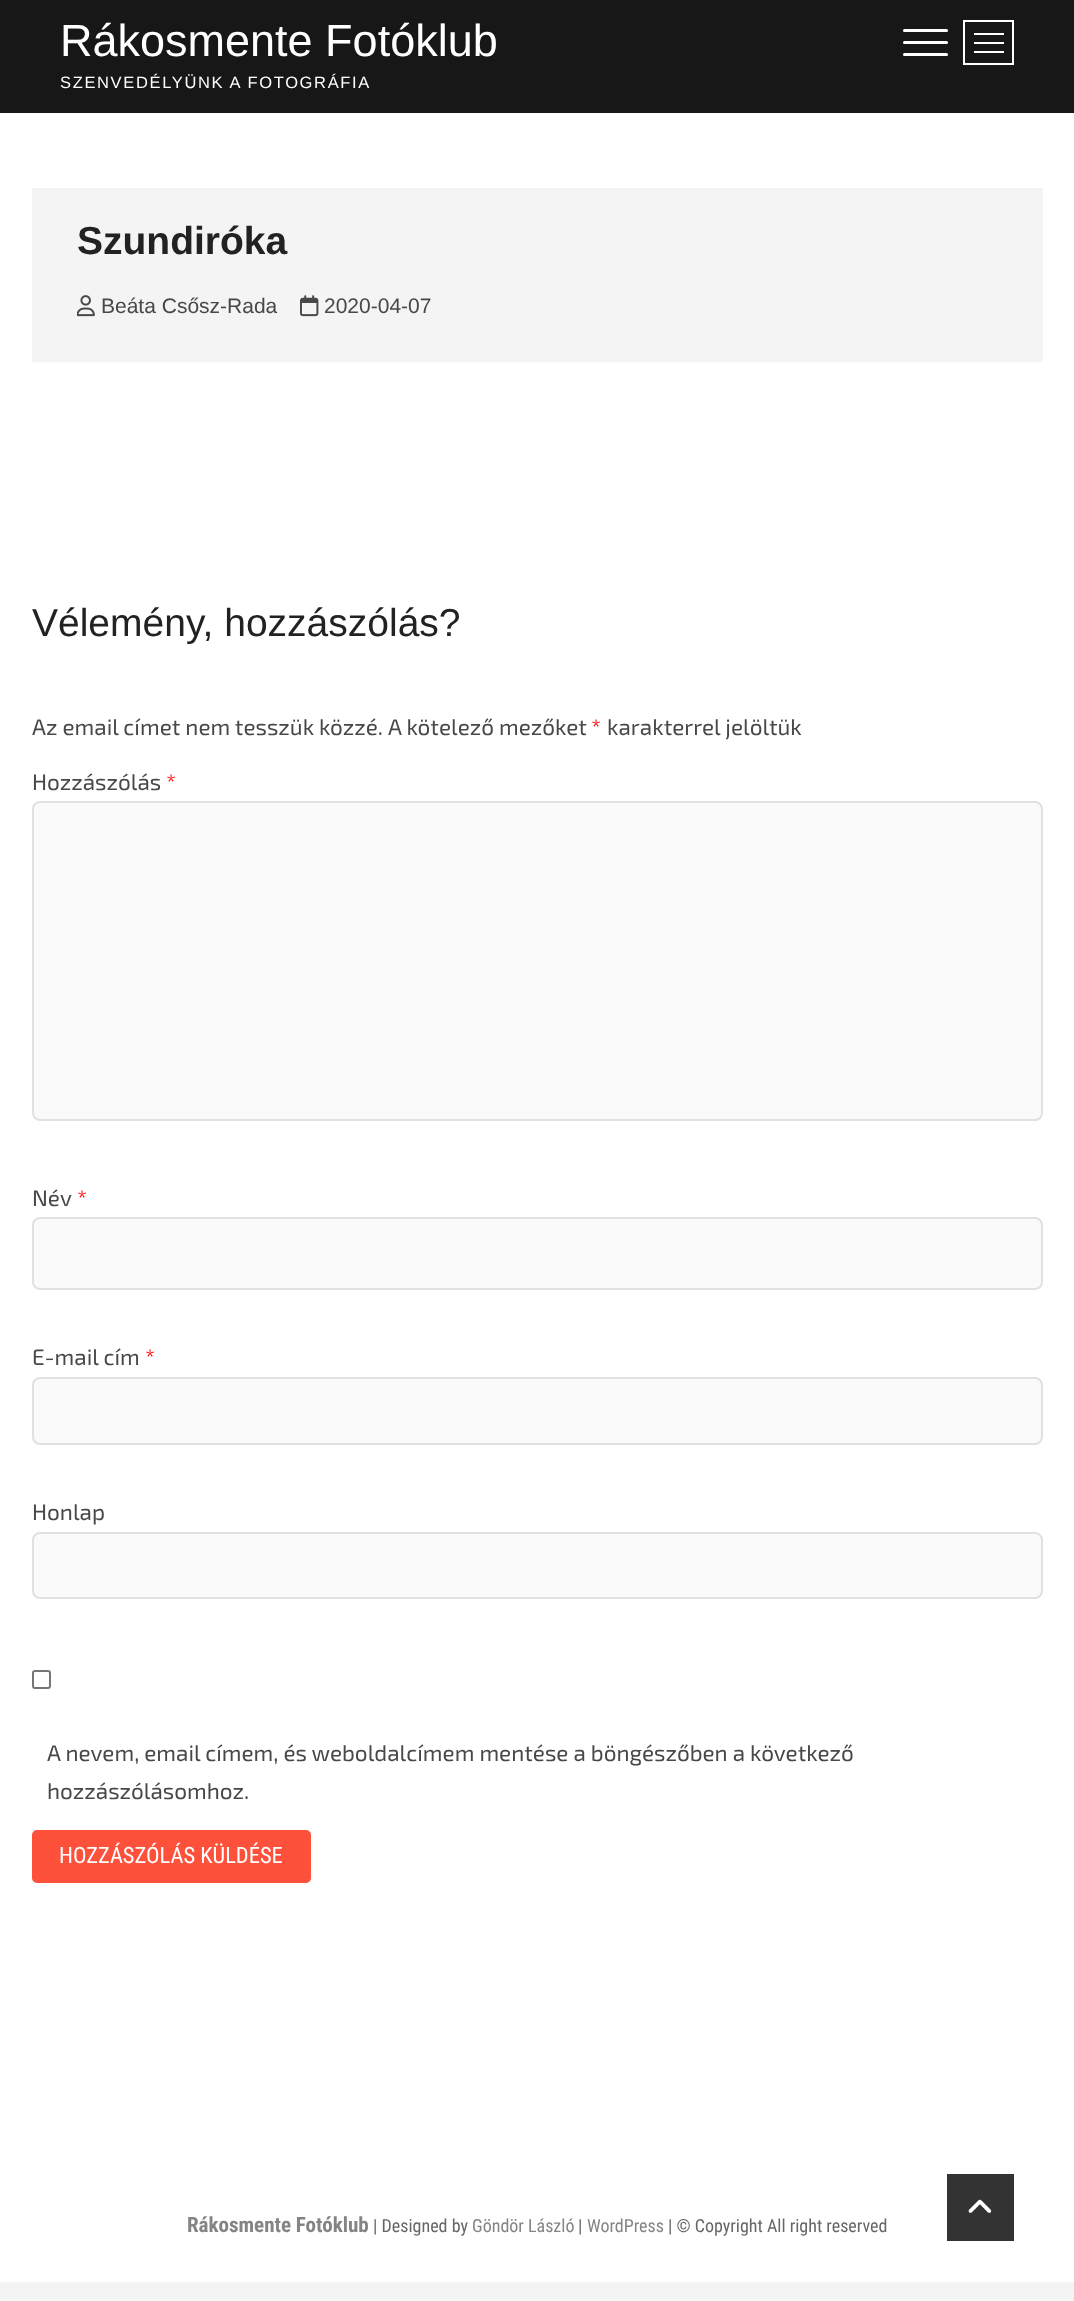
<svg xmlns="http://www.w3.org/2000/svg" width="1074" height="2301">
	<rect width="100%" height="100%" fill="#F4F4F4" />
	<rect x="0" y="113" width="1074" height="2169" fill="#FFFFFF" />
	<rect x="0" y="0" width="1074" height="113" fill="#171717" />
	<text x="60" y="56" font-family="Liberation Sans" font-size="45" fill="#FFFFFF">Rákosmente Fotóklub</text>
	<text x="60" y="88" font-family="Liberation Sans" font-size="16.5" letter-spacing="1.65" fill="#FFFFFF">SZENVEDÉLYÜNK A FOTOGRÁFIA</text>
	<rect x="903" y="41" width="45" height="3" rx="1.5" fill="#FFFFFF" />
	<rect x="903" y="29" width="45" height="3" rx="1.5" fill="#FFFFFF" />
	<rect x="903" y="53" width="45" height="3" rx="1.5" fill="#FFFFFF" />
	<rect x="964" y="21" width="49" height="43" fill="none" stroke="#FFFFFF" stroke-width="2" />
	<rect x="974" y="42" width="30" height="2" fill="#FFFFFF" />
	<rect x="974" y="33" width="30" height="2" fill="#FFFFFF" />
	<rect x="974" y="51" width="30" height="2" fill="#FFFFFF" />
	<rect x="32" y="188" width="1011" height="174" fill="#F4F4F4" />
	<text x="77" y="254" font-family="Liberation Sans" font-size="39" font-weight="700" fill="#222222">Szundiróka</text>
	<image x="77" y="295" width="18" height="22" href="assets/img1.png" />
	<text x="101" y="313" font-family="Liberation Sans" font-size="21" fill="#484848">Beáta Csősz-Rada</text>
	<image x="300" y="295" width="19" height="22" href="assets/img2.png" />
	<text x="324" y="313" font-family="Liberation Sans" font-size="21" fill="#484848">2020-04-07</text>
	<text x="32" y="636" font-family="Liberation Sans" font-size="39" fill="#222222">Vélemény, hozzászólás?</text>
	<g font-family="'Exo 2'" font-size="22.5" fill="#484848">
		<text x="32" y="735">Az email címet nem tesszük közzé.</text>
		<text x="388" y="735">A kötelező mezőket</text>
	</g>
	<text x="591" y="735" font-family="'Exo 2'" font-size="22.5" fill="#FF0000">*</text>
	<g font-family="'Exo 2'" font-size="22.5" fill="#484848">
		<text x="607" y="735">karakterrel jelöltük</text>
		<text x="32" y="790">Hozzászólás</text>
	</g>
	<text x="166" y="790" font-family="'Exo 2'" font-size="22.5" fill="#FF0000">*</text>
	<rect x="33" y="802" width="1009" height="318" rx="7" fill="#FAFAFA" stroke="#E1E1E1" stroke-width="2" />
	<text x="32" y="1206" font-family="'Exo 2'" font-size="22.5" fill="#484848">Név</text>
	<text x="77" y="1206" font-family="'Exo 2'" font-size="22.5" fill="#FF0000">*</text>
	<rect x="33" y="1218" width="1009" height="71" rx="7" fill="#FAFAFA" stroke="#E1E1E1" stroke-width="2" />
	<text x="32" y="1365" font-family="'Exo 2'" font-size="22.5" fill="#484848">E-mail cím</text>
	<text x="145" y="1365" font-family="'Exo 2'" font-size="22.5" fill="#FF0000">*</text>
	<rect x="33" y="1378" width="1009" height="66" rx="7" fill="#FAFAFA" stroke="#E1E1E1" stroke-width="2" />
	<text x="32" y="1520" font-family="'Exo 2'" font-size="22.5" fill="#484848">Honlap</text>
	<rect x="33" y="1533" width="1009" height="65" rx="7" fill="#FAFAFA" stroke="#E1E1E1" stroke-width="2" />
	<rect x="33" y="1671" width="17" height="17" rx="2" fill="none" stroke="#767676" stroke-width="2" />
	<g font-family="'Exo 2'" font-size="22.5" fill="#484848">
		<text x="47" y="1761">A nevem, email címem, és weboldalcímem mentése a böngészőben a következő</text>
		<text x="47" y="1799">hozzászólásomhoz.</text>
	</g>
	<rect x="32" y="1830" width="279" height="53" rx="5" fill="#FD513B" />
	<text x="59" y="1863" font-family="Roboto Condensed" font-size="22.5" fill="#FFFFFF">HOZZÁSZÓLÁS KÜLDÉSE</text>
	<text x="187" y="2232" font-family="Roboto Condensed" font-size="21" font-weight="700" fill="#848484">Rákosmente Fotóklub</text>
	<text x="373" y="2232" font-family="Roboto Condensed" font-size="18" fill="#666666">| Designed by</text>
	<text x="472" y="2232" font-family="Roboto Condensed" font-size="18" fill="#848484">Göndör László</text>
	<text x="578" y="2232" font-family="Roboto Condensed" font-size="18" fill="#666666">|</text>
	<text x="587" y="2232" font-family="Roboto Condensed" font-size="18" fill="#848484">WordPress</text>
	<text x="668" y="2232" font-family="Roboto Condensed" font-size="18" fill="#666666">| © Copyright All right reserved</text>
	<rect x="947" y="2174" width="67" height="67" fill="#333333" />
	<image x="968" y="2199" width="24" height="14" href="assets/img3.png" />
</svg>
